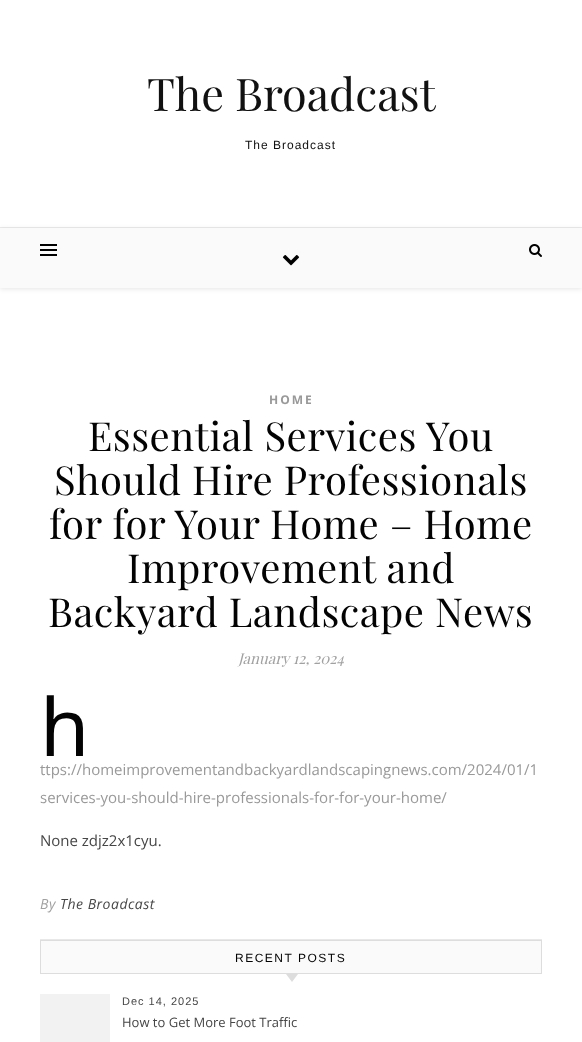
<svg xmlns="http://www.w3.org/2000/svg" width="582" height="1042">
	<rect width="100%" height="100%" fill="#FFFFFF" />
	<rect x="0" y="227" width="582" height="1" fill="#EBEBEB" />
	<text x="147" y="111" font-family="Playfair Display" font-size="45" fill="#111111">The Broadcast</text>
	<text x="245" y="149" font-family="Liberation Sans" font-size="12" letter-spacing="1" fill="#111111">The Broadcast</text>
	<rect x="0" y="229" width="582" height="60" fill="#000000" fill-opacity="0.1" filter="blur(2.5px)" />
	<rect x="0" y="228" width="582" height="60" fill="#FAFAFA" />
	<rect x="40" y="244" width="17" height="2" fill="#000000" />
	<rect x="40" y="249" width="17" height="2" fill="#000000" />
	<rect x="40" y="254" width="17" height="2" fill="#000000" />
	<image x="529" y="244" width="13" height="13" href="assets/img1.png" />
	<image x="282" y="255" width="18" height="11" href="assets/img2.png" />
	<text x="269" y="404" font-family="Open Sans" font-size="12" font-weight="700" letter-spacing="2" fill="#999999">HOME</text>
	<g font-family="Playfair Display" font-size="40" letter-spacing="0.5" fill="#030303">
		<text x="88" y="451">Essential Services You</text>
		<text x="54" y="495">Should Hire Professionals</text>
		<text x="49" y="539">for for Your Home – Home</text>
		<text x="127" y="583">Improvement and</text>
		<text x="48" y="627">Backyard Landscape News</text>
	</g>
	<text x="238" y="664" font-family="Playfair Display" font-size="15" font-style="italic" fill="#A1A1A1">January 12, 2024</text>
	<text x="40" y="756" font-family="Noto Sans" font-size="80" fill="#030303">h</text>
	<g font-family="Open Sans" font-size="15" fill="#999999">
		<text x="40" y="775">ttps://homeimprovementandbackyardlandscapingnews.com/2024/01/1</text>
		<text x="40" y="803">services-you-should-hire-professionals-for-for-your-home/</text>
	</g>
	<text x="40" y="846" font-family="Open Sans" font-size="15" fill="#464646">None zdjz2x1cyu.</text>
	<rect x="40" y="939" width="502" height="1" fill="#E8E8E8" />
	<text x="40" y="909" font-family="Open Sans" font-size="14" font-style="italic" letter-spacing="0.5" fill="#A1A1A1">By</text>
	<text x="60" y="909" font-family="Open Sans" font-size="14" font-style="italic" letter-spacing="0.5" fill="#464646">The Broadcast</text>
	<rect x="40.5" y="940.5" width="501" height="33" fill="#FAFAFA" stroke="#DDDDDD" />
	<text x="235" y="962" font-family="Liberation Sans" font-size="12" letter-spacing="1.5" fill="#030303">RECENT POSTS</text>
	<path d="M286 974H298L292 982Z" fill="#DDDDDD" />
	<rect x="40" y="994" width="70" height="48" fill="#F2F2F2" />
	<text x="122" y="1005" font-family="Liberation Sans" font-size="11" letter-spacing="1" fill="#464646">Dec 14, 2025</text>
	<text x="122" y="1027" font-family="Open Sans" font-size="13" fill="#464646">How to Get More Foot Traffic</text>
</svg>
